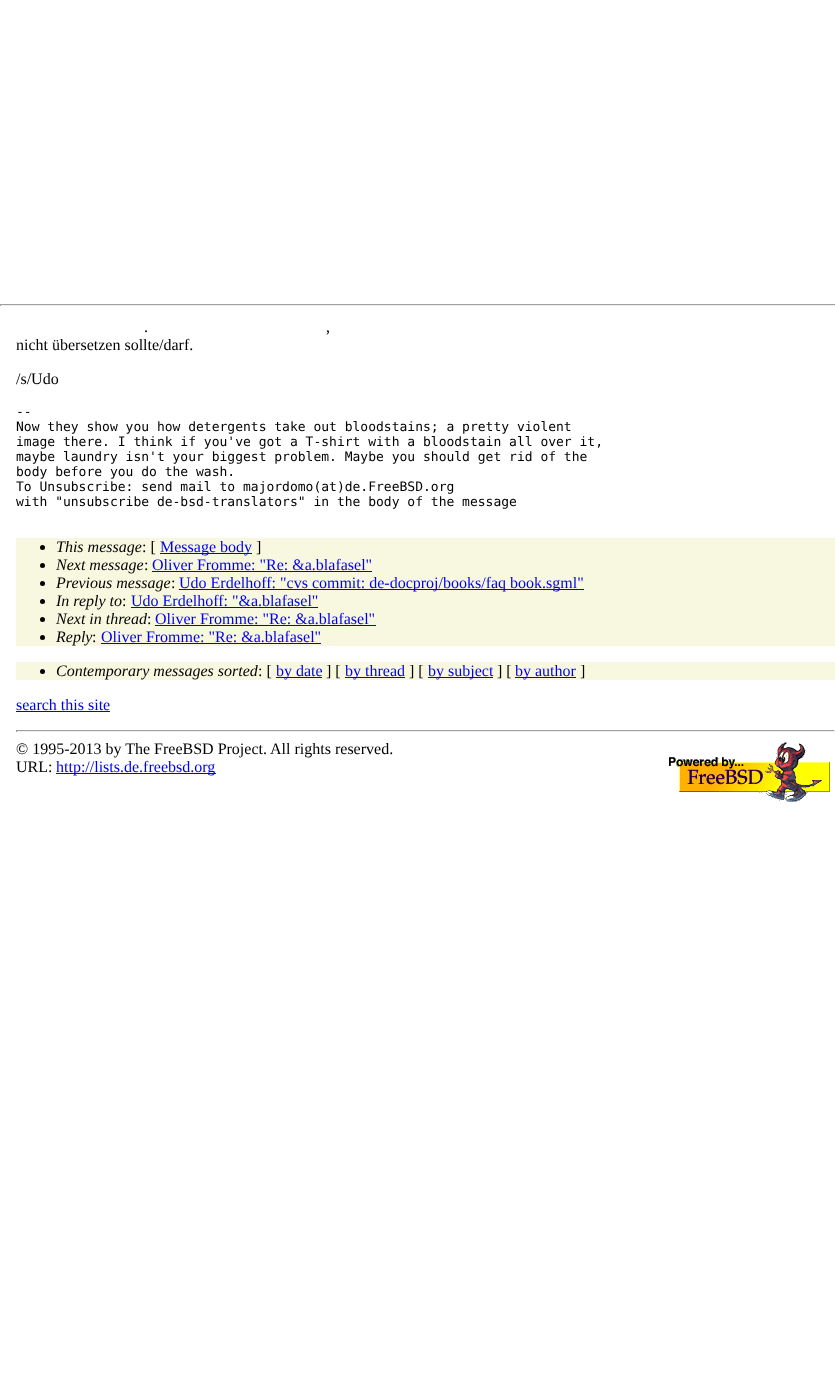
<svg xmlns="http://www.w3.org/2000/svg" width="835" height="1378">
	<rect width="100%" height="100%" fill="#FFFFFF" />
	<rect x="0" y="304" width="835" height="1" fill="#9F9F9F" />
	<rect x="0" y="305" width="835" height="1" fill="#EEEEEE" />
	<rect x="0" y="304" width="1" height="2" fill="#9F9F9F" />
	<g font-family="Liberation Serif" font-size="16" fill="#000000">
		<text x="144" y="332">.</text>
		<text x="326" y="332">,</text>
		<text x="16" y="350">nicht übersetzen sollte/darf.</text>
		<text x="16" y="384">/s/Udo</text>
	</g>
	<g font-family="DejaVu Sans Mono" font-size="13" fill="#000000">
		<text x="16" y="416">--</text>
		<text x="16" y="431">Now they show you how detergents take out bloodstains; a pretty violent</text>
		<text x="16" y="446">image there. I think if you've got a T-shirt with a bloodstain all over it,</text>
		<text x="16" y="461">maybe laundry isn't your biggest problem. Maybe you should get rid of the</text>
		<text x="16" y="476">body before you do the wash.</text>
		<text x="16" y="491">To Unsubscribe: send mail to majordomo(at)de.FreeBSD.org</text>
		<text x="16" y="506">with "unsubscribe de-bsd-translators" in the body of the message</text>
	</g>
	<rect x="16" y="538" width="819" height="108" fill="#F8F8E0" />
	<circle cx="42.5" cy="547.5" r="2.5" fill="#000000" />
	<text x="56" y="552" font-family="Liberation Serif" font-size="16" font-style="italic" fill="#000000">This message</text>
	<text x="142" y="552" font-family="Liberation Serif" font-size="16" fill="#000000">: [</text>
	<rect x="160" y="553" width="92" height="1" fill="#0000EE" />
	<text x="160" y="552" font-family="Liberation Serif" font-size="16" fill="#0000EE">Message body</text>
	<text x="256" y="552" font-family="Liberation Serif" font-size="16" fill="#000000">]</text>
	<circle cx="42.5" cy="565.5" r="2.5" fill="#000000" />
	<text x="56" y="570" font-family="Liberation Serif" font-size="16" font-style="italic" fill="#000000">Next message</text>
	<text x="144" y="570" font-family="Liberation Serif" font-size="16" fill="#000000">:</text>
	<text x="152" y="570" font-family="Liberation Serif" font-size="16" fill="#0000EE">Oliver Fromme: "Re: &amp;a.blafasel"</text>
	<rect x="152" y="571" width="220" height="1" fill="#0000EE" />
	<circle cx="42.5" cy="583.5" r="2.5" fill="#000000" />
	<text x="56" y="588" font-family="Liberation Serif" font-size="16" font-style="italic" fill="#000000">Previous message</text>
	<text x="171" y="588" font-family="Liberation Serif" font-size="16" fill="#000000">:</text>
	<rect x="179" y="589" width="405" height="1" fill="#0000EE" />
	<text x="179" y="588" font-family="Liberation Serif" font-size="16" fill="#0000EE">Udo Erdelhoff: "cvs commit: de-docproj/books/faq book.sgml"</text>
	<circle cx="42.5" cy="601.5" r="2.5" fill="#000000" />
	<text x="56" y="606" font-family="Liberation Serif" font-size="16" font-style="italic" fill="#000000">In reply to</text>
	<text x="122" y="606" font-family="Liberation Serif" font-size="16" fill="#000000">:</text>
	<text x="131" y="606" font-family="Liberation Serif" font-size="16" fill="#0000EE">Udo Erdelhoff: "&amp;a.blafasel"</text>
	<rect x="131" y="607" width="187" height="1" fill="#0000EE" />
	<circle cx="42.5" cy="619.5" r="2.5" fill="#000000" />
	<text x="56" y="624" font-family="Liberation Serif" font-size="16" font-style="italic" fill="#000000">Next in thread</text>
	<text x="147" y="624" font-family="Liberation Serif" font-size="16" fill="#000000">:</text>
	<text x="155" y="624" font-family="Liberation Serif" font-size="16" fill="#0000EE">Oliver Fromme: "Re: &amp;a.blafasel"</text>
	<rect x="155" y="625" width="221" height="1" fill="#0000EE" />
	<circle cx="42.5" cy="637.5" r="2.5" fill="#000000" />
	<text x="56" y="642" font-family="Liberation Serif" font-size="16" font-style="italic" fill="#000000">Reply</text>
	<text x="92" y="642" font-family="Liberation Serif" font-size="16" fill="#000000">:</text>
	<text x="101" y="642" font-family="Liberation Serif" font-size="16" fill="#0000EE">Oliver Fromme: "Re: &amp;a.blafasel"</text>
	<rect x="101" y="643" width="220" height="1" fill="#0000EE" />
	<rect x="16" y="662" width="819" height="18" fill="#F8F8E0" />
	<circle cx="42.5" cy="671.5" r="2.5" fill="#000000" />
	<text x="56" y="676" font-family="Liberation Serif" font-size="16" font-style="italic" fill="#000000">Contemporary messages sorted</text>
	<text x="258" y="676" font-family="Liberation Serif" font-size="16" fill="#000000">: [</text>
	<rect x="276" y="677" width="46" height="1" fill="#0000EE" />
	<text x="276" y="676" font-family="Liberation Serif" font-size="16" fill="#0000EE">by date</text>
	<text x="326" y="676" font-family="Liberation Serif" font-size="16" fill="#000000">] [</text>
	<rect x="345" y="677" width="60" height="1" fill="#0000EE" />
	<text x="345" y="676" font-family="Liberation Serif" font-size="16" fill="#0000EE">by thread</text>
	<text x="409" y="676" font-family="Liberation Serif" font-size="16" fill="#000000">] [</text>
	<rect x="428" y="677" width="65" height="1" fill="#0000EE" />
	<text x="428" y="676" font-family="Liberation Serif" font-size="16" fill="#0000EE">by subject</text>
	<text x="497" y="676" font-family="Liberation Serif" font-size="16" fill="#000000">] [</text>
	<rect x="515" y="677" width="61" height="1" fill="#0000EE" />
	<text x="515" y="676" font-family="Liberation Serif" font-size="16" fill="#0000EE">by author</text>
	<text x="580" y="676" font-family="Liberation Serif" font-size="16" fill="#000000">]</text>
	<text x="16" y="710" font-family="Liberation Serif" font-size="16" fill="#0000EE">search this site</text>
	<rect x="16" y="711" width="94" height="1" fill="#0000EE" />
	<rect x="16" y="730" width="819" height="1" fill="#9F9F9F" />
	<rect x="834" y="730" width="1" height="2" fill="#EEEEEE" />
	<rect x="16" y="731" width="819" height="1" fill="#EEEEEE" />
	<rect x="16" y="730" width="1" height="2" fill="#9F9F9F" />
	<text x="16" y="754" font-family="Liberation Serif" font-size="16" fill="#000000">© 1995-2013 by The FreeBSD Project. All rights reserved.</text>
	<image x="669" y="742" width="161" height="60" href="assets/img1.png" />
	<text x="16" y="772" font-family="Liberation Serif" font-size="16" fill="#000000">URL:</text>
	<rect x="56" y="773" width="160" height="1" fill="#0000EE" />
	<text x="56" y="772" font-family="Liberation Serif" font-size="16" fill="#0000EE">http://lists.de.freebsd.org</text>
</svg>
